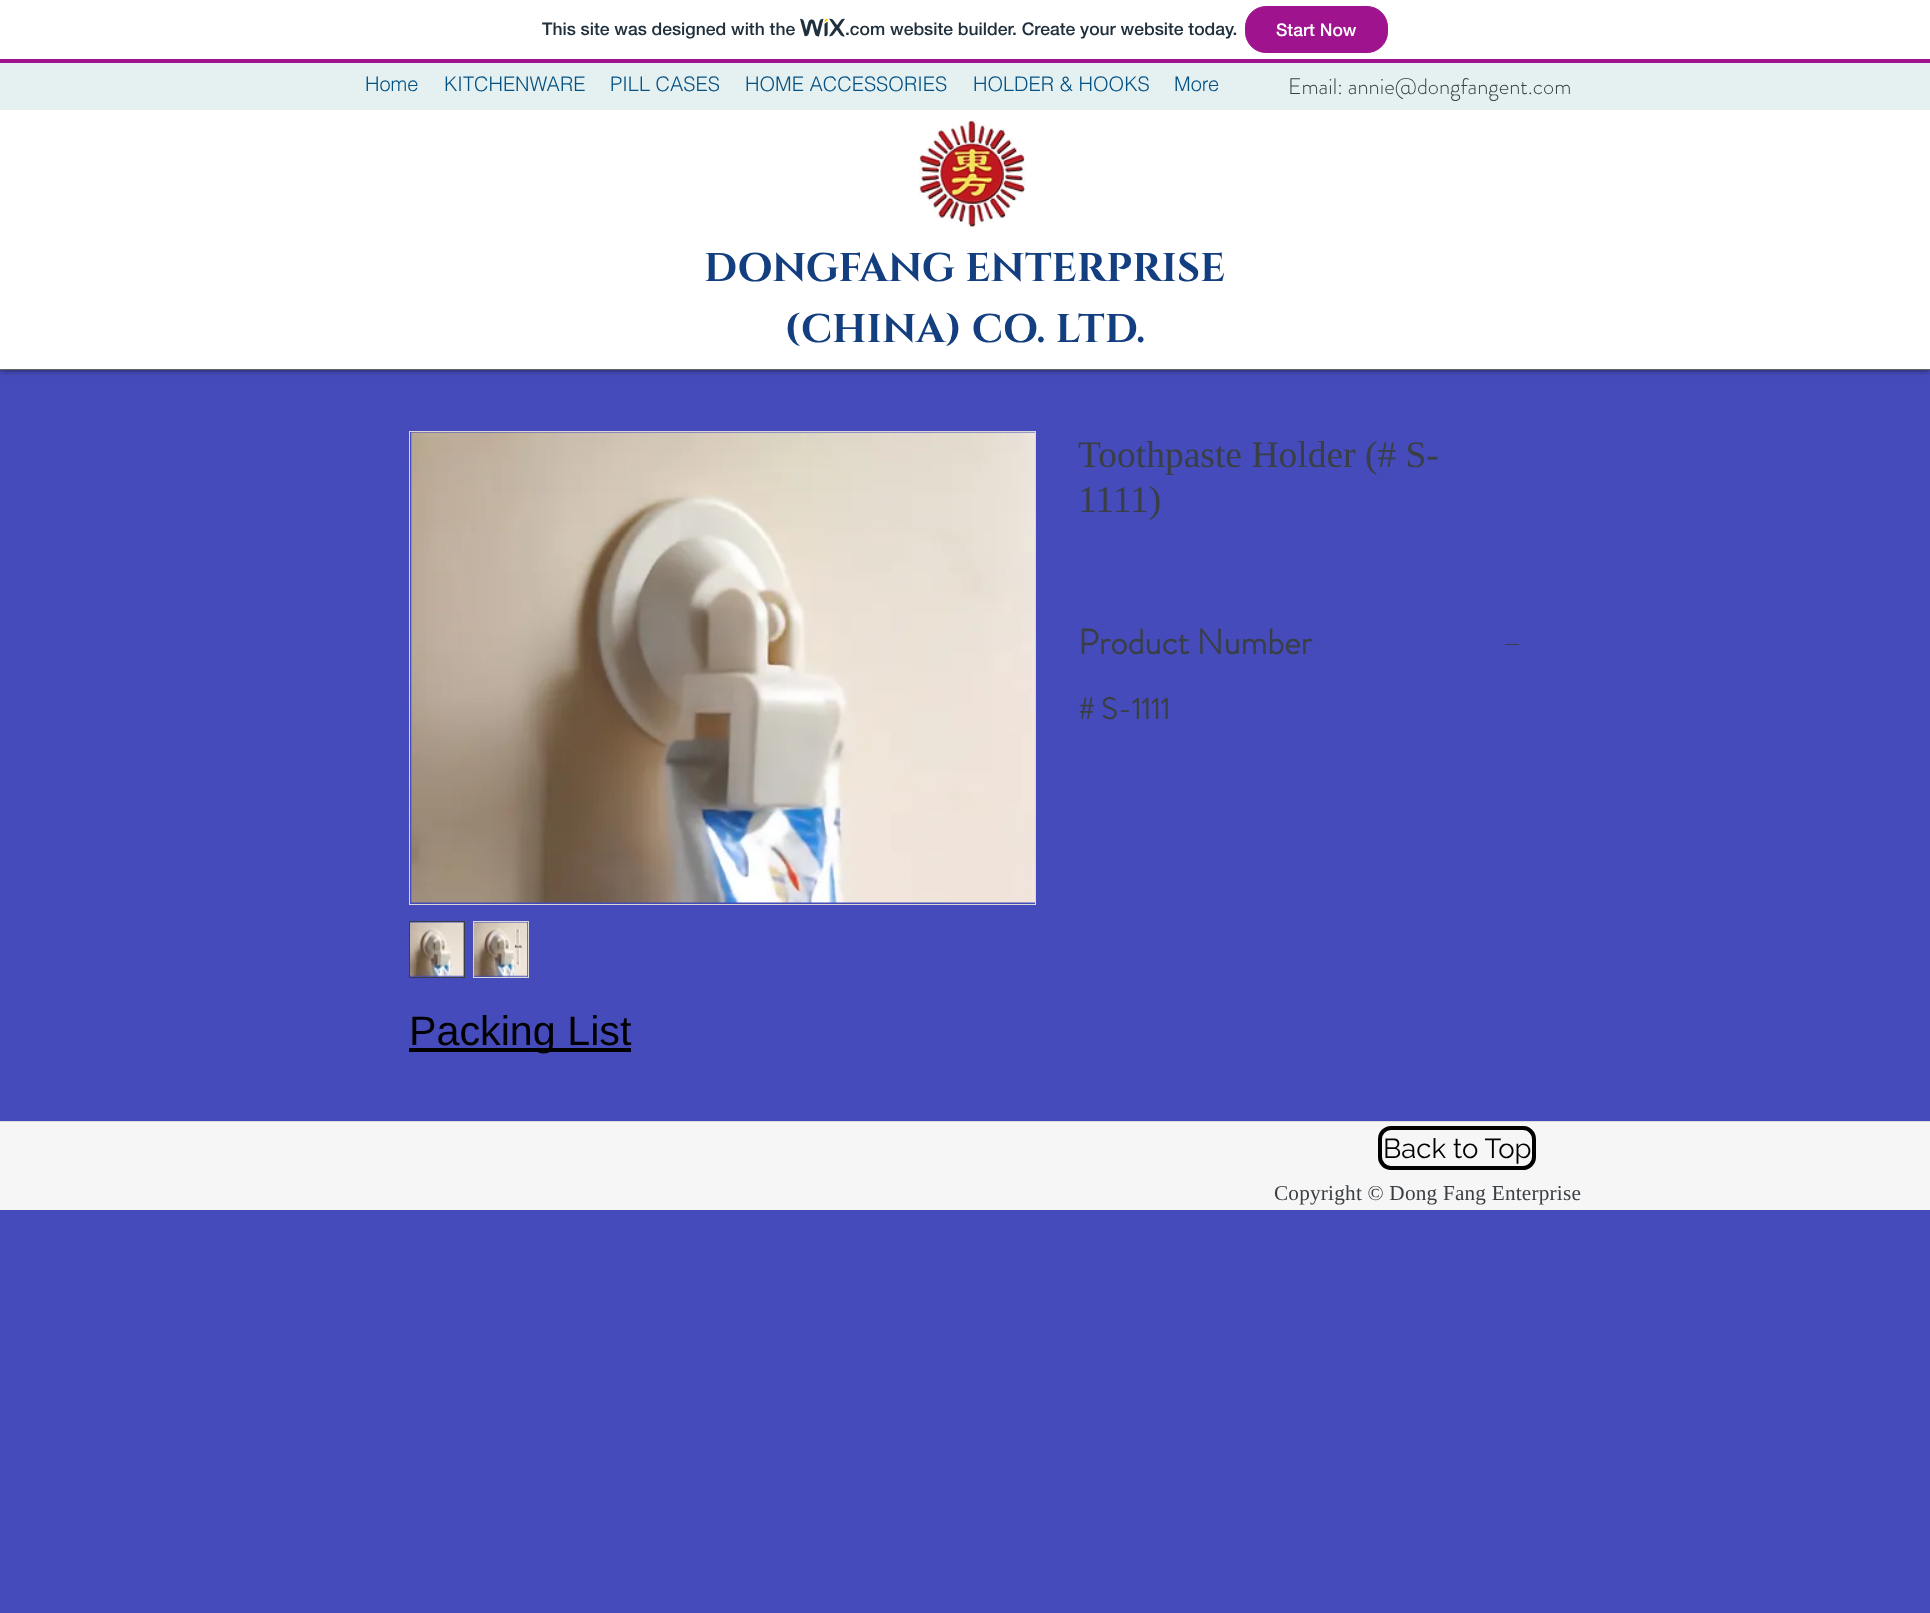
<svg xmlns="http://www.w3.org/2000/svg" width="1930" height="1613">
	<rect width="100%" height="100%" fill="#454BBA" />
	<rect x="0" y="63" width="1930" height="307" fill="#000000" fill-opacity="0.6" filter="blur(3px)" />
	<rect x="0" y="0" width="1930" height="59" fill="#FFFFFF" />
	<rect x="0" y="59" width="1930" height="4" fill="#A0138E" />
	<text x="542" y="35" font-family="'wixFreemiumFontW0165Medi'" font-size="17.5" font-weight="500" fill="#20303C">This site was designed with the</text>
	<image x="800" y="18" width="45" height="19" href="assets/img1.png" />
	<text x="845" y="35" font-family="'wixFreemiumFontW0165Medi'" font-size="17.5" font-weight="500" fill="#20303C">.com website builder. Create your website today.</text>
	<rect x="1245.5" y="6.5" width="142" height="46" rx="20.5" fill="#A0138E" stroke="#A0138E" />
	<text x="1276" y="36" font-family="'wixFreemiumFontW0165Medi'" font-size="17.5" font-weight="500" fill="#FFFFFF">Start Now</text>
	<rect x="0" y="110" width="1930" height="259" fill="#FFFFFF" />
	<rect x="0" y="369" width="1930" height="1" fill="#666666" />
	<rect x="0" y="63" width="1930" height="47" fill="#E5F0F1" />
	<g font-family="helvetica" font-size="20" font-weight="300" fill="#045184">
		<text x="365" y="91">Home</text>
		<text x="444" y="91">KITCHENWARE</text>
		<text x="610" y="91">PILL CASES</text>
		<text x="745" y="91">HOME ACCESSORIES</text>
		<text x="973" y="91">HOLDER &amp; HOOKS</text>
		<text x="1174" y="91">More</text>
	</g>
	<text x="1288" y="94" font-family="'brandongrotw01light'" font-size="22.5" font-weight="300" fill="#393F44">Email: annie@dongfangent.com</text>
	<image x="918" y="120" width="108" height="108" href="assets/img2.png" />
	<g font-family="Cinzel" font-size="40" font-weight="700" fill="#133E80">
		<text x="704" y="281">DONGFANG ENTERPRISE</text>
		<text x="784" y="342">(CHINA) CO. LTD.</text>
	</g>
	<g font-family="Liberation Serif" font-size="37.5" fill="#393F44">
		<text x="1078" y="467">Toothpaste Holder (# S-</text>
		<text x="1078" y="512">1111)</text>
	</g>
	<text x="1078" y="654" font-family="'brandongrotw01light'" font-size="35" font-weight="700" fill="#393F44">Product Number</text>
	<rect x="1505" y="644" width="14" height="1" fill="#393F44" />
	<text x="1078" y="719" font-family="'brandongrotw01light'" font-size="30" font-weight="700" fill="#393F44"># S-1111</text>
	<rect x="409.5" y="431.5" width="626" height="473" fill="none" stroke="#D8D8D8" />
	<image x="411" y="432" width="624" height="471" href="assets/img3.png" />
	<rect x="409.5" y="921.5" width="55" height="56" fill="none" stroke="#393F44" />
	<image x="410" y="922" width="54" height="55" href="assets/img4.png" />
	<rect x="473.5" y="921.5" width="55" height="56" fill="none" stroke="#D8D8D8" />
	<image x="473" y="922" width="55" height="55" href="assets/img5.png" />
	<rect x="409" y="1048" width="222" height="4" fill="#000000" />
	<text x="409" y="1045" font-family="Liberation Sans" font-size="41.25" fill="#000000">Packing List</text>
	<rect x="0" y="1122" width="1930" height="88" fill="#F6F6F6" />
	<rect x="0" y="1121" width="1930" height="1" fill="#DADBDB" />
	<rect x="1380" y="1128" width="154" height="40" rx="11" fill="none" stroke="#000000" stroke-width="4" />
	<text x="1383" y="1158" font-family="Raleway" font-size="27.5" fill="#000000">Back to Top</text>
	<text x="1274" y="1200" font-family="Liberation Serif" font-size="21.25" letter-spacing="0.2" fill="#393F44">Copyright © Dong Fang Enterprise</text>
</svg>
